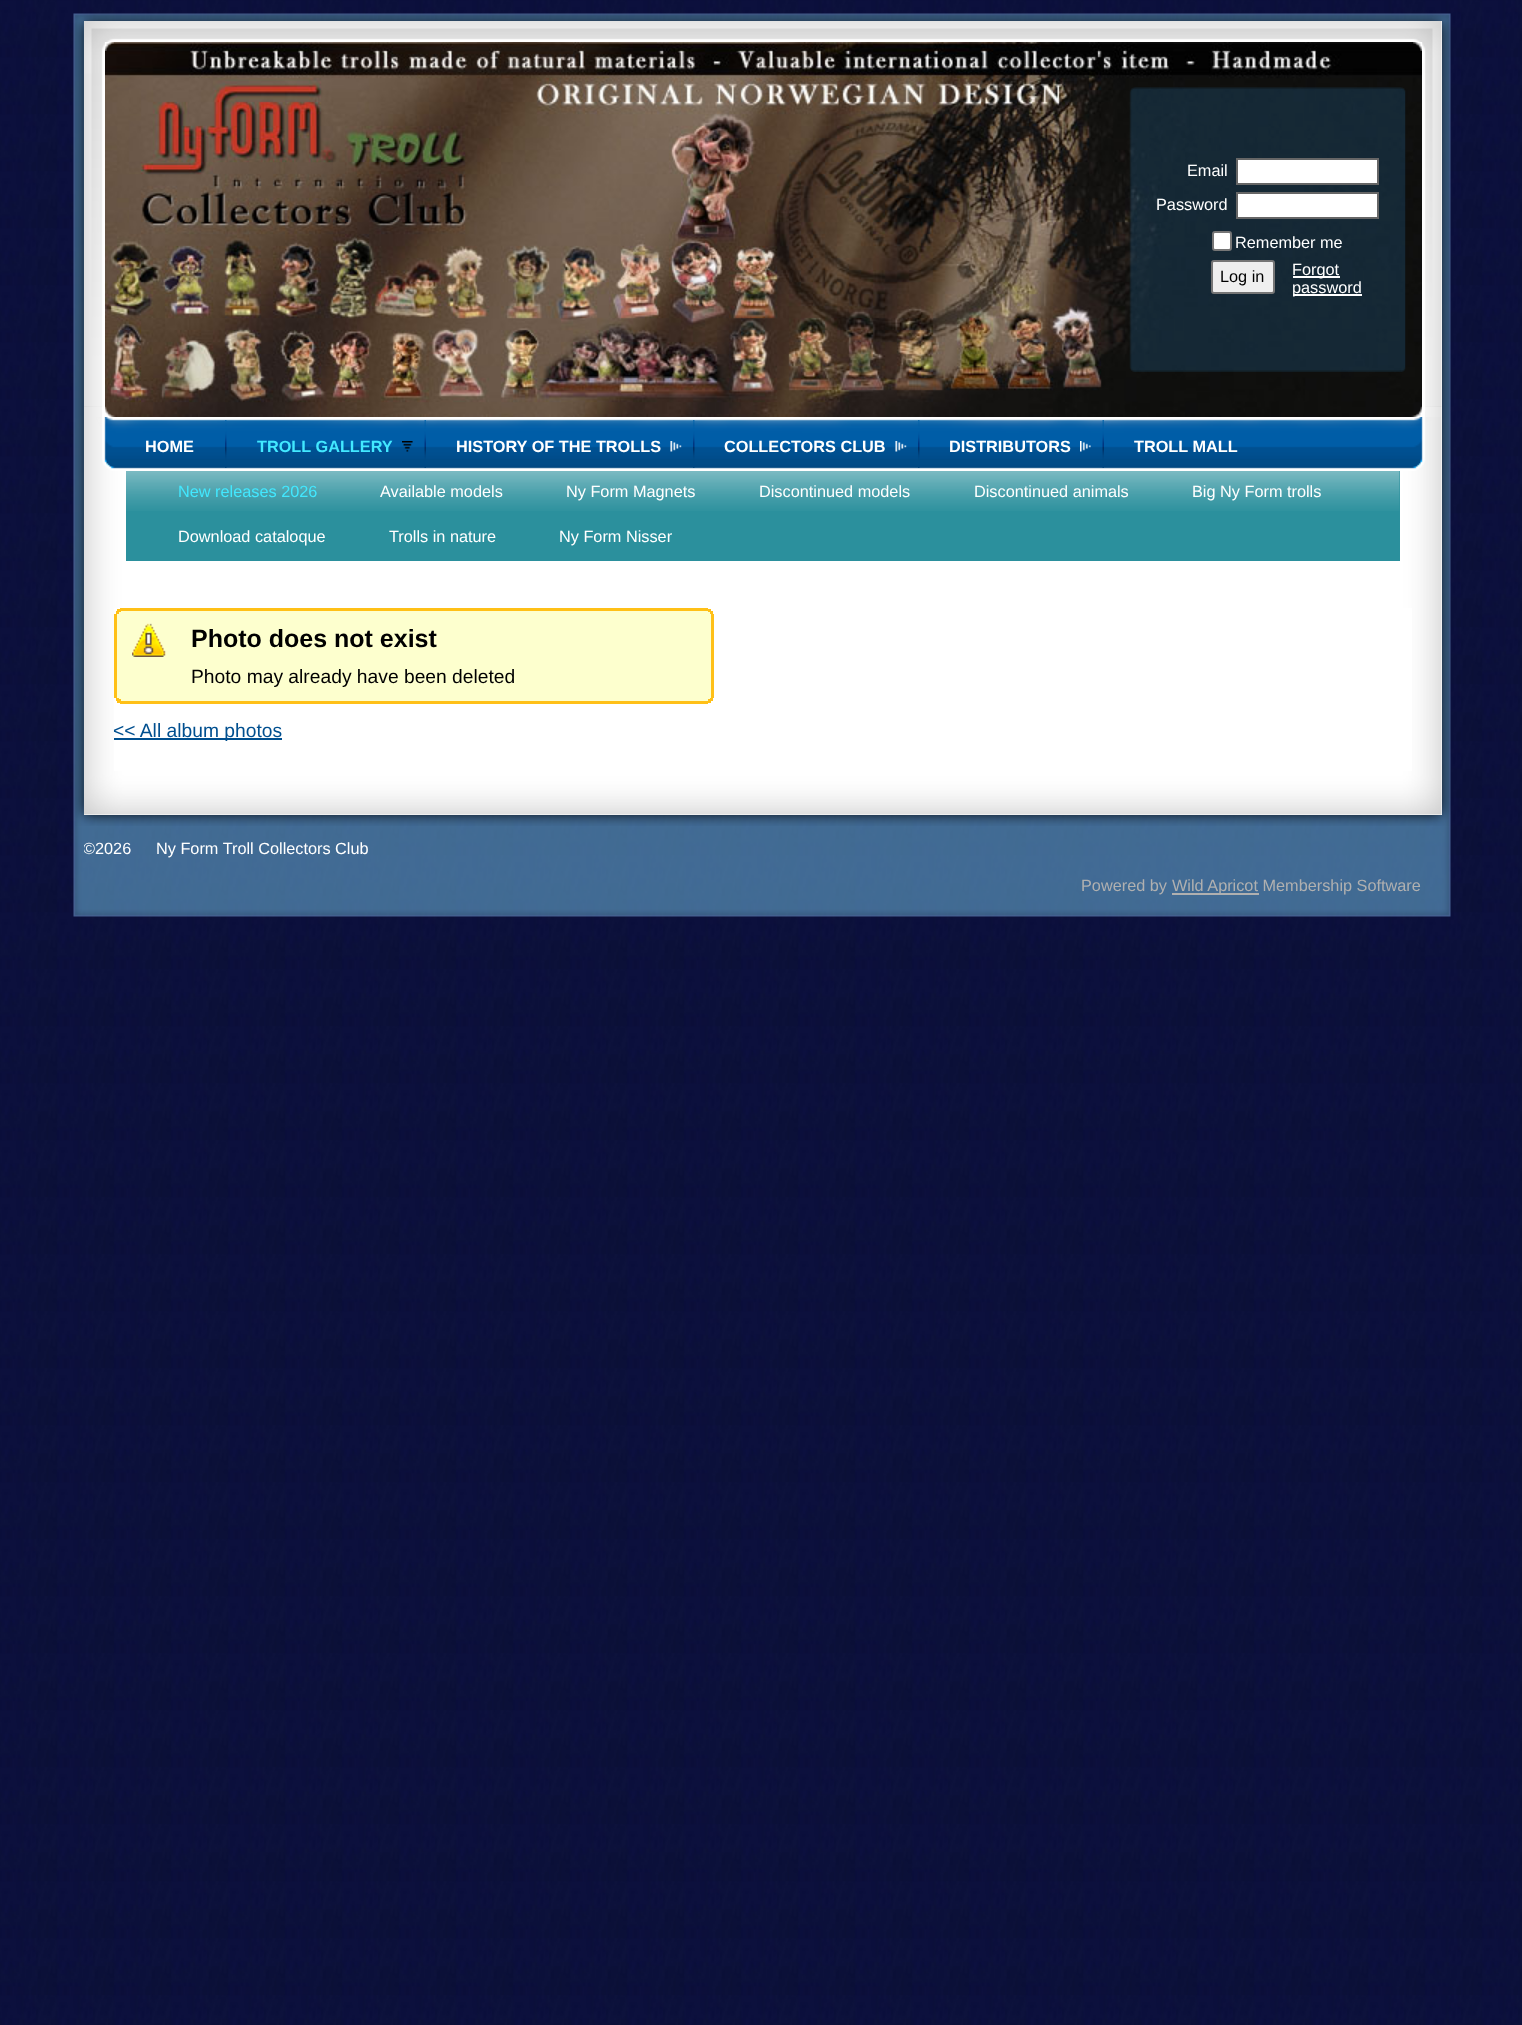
<svg xmlns="http://www.w3.org/2000/svg" width="1522" height="2025">
	<defs>
		<clipPath id="clip1"><rect x="84" y="839" width="1358" height="18" /></clipPath>
	</defs>
	<rect width="100%" height="100%" fill="#FFFFFF" />
	<image x="0" y="0" width="1522" height="2025" href="assets/img1.png" />
	<image x="73" y="13" width="1378" height="8" href="assets/img2.png" />
	<image x="73" y="21" width="1378" height="888" href="assets/img3.png" />
	<image x="74" y="13" width="1377" height="29" href="assets/img4.png" />
	<rect x="84" y="21" width="1358" height="21" fill="#FFFFFF" />
	<image x="84" y="21" width="1358" height="21" href="assets/img5.png" />
	<image x="74" y="42" width="1377" height="375" href="assets/img6.png" />
	<rect x="84" y="42" width="1358" height="365" fill="#FFFFFF" />
	<image x="84" y="42" width="1358" height="365" href="assets/img7.png" />
	<image x="105" y="42" width="1317" height="375" href="assets/img8.png" />
	<image x="105" y="42" width="9" height="9" href="assets/img9.png" />
	<image x="1413" y="42" width="9" height="9" href="assets/img10.png" />
	<image x="1129" y="87" width="277" height="285" href="assets/img11.png" />
	<text x="1187" y="176" font-family="Liberation Sans" font-size="16.3" fill="#FFFFFF">Email</text>
	<rect x="1237" y="159" width="141" height="25" fill="#FFFFFF" stroke="#666666" stroke-width="2" />
	<text x="1156" y="210" font-family="Liberation Sans" font-size="16.3" fill="#FFFFFF">Password</text>
	<rect x="1237" y="193" width="141" height="25" fill="#FFFFFF" stroke="#666666" stroke-width="2" />
	<rect x="1213" y="232" width="18" height="18" rx="2" fill="#FFFFFF" stroke="#767676" stroke-width="2" />
	<text x="1235" y="248" font-family="Liberation Sans" font-size="16.3" fill="#FFFFFF">Remember me</text>
	<rect x="1212" y="261" width="62" height="32" rx="2" fill="#EFEFEF" stroke="#767676" stroke-width="2" />
	<text x="1220" y="282" font-family="Liberation Sans" font-size="16.3" fill="#000000">Log in</text>
	<rect x="1293" y="276" width="47" height="2" fill="#FFFFFF" />
	<text x="1292" y="275" font-family="Liberation Sans" font-size="16.3" fill="#FFFFFF">Forgot</text>
	<rect x="1293" y="294" width="69" height="2" fill="#FFFFFF" />
	<text x="1292" y="293" font-family="Liberation Sans" font-size="16.3" fill="#FFFFFF">password</text>
	<image x="74" y="564" width="1377" height="207" href="assets/img12.png" />
	<rect x="84" y="564" width="1358" height="207" fill="#FFFFFF" />
	<image x="84" y="564" width="1358" height="207" href="assets/img13.png" />
	<rect x="114" y="608" width="1298" height="163" fill="#FFFFFF" />
	<rect x="120" y="608" width="588" height="1" fill="#FFC017" />
	<rect x="117" y="609" width="594" height="2" fill="#FFC017" />
	<rect x="116" y="611" width="597" height="3" fill="#FDFFCE" />
	<rect x="708" y="611" width="5" height="1" fill="#FFC017" />
	<rect x="116" y="611" width="5" height="1" fill="#FFC017" />
	<rect x="710" y="612" width="3" height="2" fill="#FFC017" />
	<rect x="116" y="612" width="3" height="2" fill="#FFC017" />
	<rect x="117" y="614" width="594" height="84" fill="#FDFFCE" />
	<image x="132" y="623" width="34" height="34" href="assets/img14.png" />
	<rect x="711" y="614" width="3" height="84" fill="#FFC017" />
	<rect x="114" y="614" width="3" height="84" fill="#FFC017" />
	<text x="191" y="647" font-family="Liberation Sans" font-size="25" font-weight="700" fill="#000000">Photo does not exist</text>
	<text x="191" y="683" font-family="Liberation Sans" font-size="19.25" fill="#000000">Photo may already have been deleted</text>
	<rect x="116" y="698" width="597" height="3" fill="#FDFFCE" />
	<rect x="710" y="698" width="3" height="1" fill="#FFC017" />
	<rect x="116" y="698" width="3" height="1" fill="#FFC017" />
	<rect x="708" y="699" width="5" height="2" fill="#FFC017" />
	<rect x="116" y="699" width="5" height="2" fill="#FFC017" />
	<rect x="117" y="701" width="594" height="2" fill="#FFC017" />
	<rect x="120" y="703" width="588" height="1" fill="#FFC017" />
	<rect x="114" y="738" width="168" height="2" fill="#004F8F" />
	<text x="113" y="737" font-family="Liberation Sans" font-size="19.25" fill="#004F8F">&lt;&lt; All album photos</text>
	<image x="74" y="771" width="1377" height="55" href="assets/img15.png" />
	<rect x="84" y="771" width="1358" height="44" fill="#FFFFFF" />
	<image x="84" y="771" width="1358" height="44" href="assets/img16.png" />
	<rect x="84" y="407" width="21" height="10" fill="#FFFFFF" />
	<image x="84" y="406" width="21" height="11" href="assets/img17.png" />
	<image x="105" y="406" width="1317" height="11" href="assets/img18.png" />
	<rect x="1422" y="407" width="20" height="10" fill="#FFFFFF" />
	<image x="1422" y="406" width="20" height="11" href="assets/img19.png" />
	<image x="102" y="406" width="1323" height="11" href="assets/img20.png" />
	<image x="74" y="417" width="1377" height="147" href="assets/img21.png" />
	<rect x="84" y="471" width="1358" height="93" fill="#FFFFFF" />
	<image x="84" y="471" width="1358" height="93" href="assets/img22.png" />
	<rect x="124.5" y="469.5" width="1277" height="93" fill="#2B909D" stroke="#FFFFFF" stroke-width="3" />
	<rect x="84" y="417" width="1358" height="54" fill="#FFFFFF" />
	<image x="84" y="417" width="1358" height="54" href="assets/img23.png" />
	<text x="145" y="452" font-family="Liberation Sans" font-size="16.3" font-weight="700" fill="#FFFFFF">HOME</text>
	<image x="225" y="420" width="2" height="48" href="assets/img24.png" />
	<image x="402" y="441" width="11" height="11" href="assets/img25.png" />
	<text x="257" y="452" font-family="Liberation Sans" font-size="16.3" font-weight="700" fill="#42E8FF">TROLL GALLERY</text>
	<image x="424" y="420" width="2" height="48" href="assets/img26.png" />
	<image x="670" y="441" width="12" height="11" href="assets/img27.png" />
	<text x="456" y="452" font-family="Liberation Sans" font-size="16.3" font-weight="700" fill="#FFFFFF">HISTORY OF THE TROLLS</text>
	<image x="693" y="420" width="2" height="48" href="assets/img28.png" />
	<image x="895" y="441" width="12" height="11" href="assets/img29.png" />
	<text x="724" y="452" font-family="Liberation Sans" font-size="16.3" font-weight="700" fill="#FFFFFF">COLLECTORS CLUB</text>
	<image x="918" y="420" width="2" height="48" href="assets/img30.png" />
	<image x="1080" y="441" width="11" height="11" href="assets/img31.png" />
	<text x="949" y="452" font-family="Liberation Sans" font-size="16.3" font-weight="700" fill="#FFFFFF">DISTRIBUTORS</text>
	<image x="1102" y="420" width="2" height="48" href="assets/img32.png" />
	<text x="1134" y="452" font-family="Liberation Sans" font-size="16.3" font-weight="700" fill="#FFFFFF">TROLL MALL</text>
	<image x="126" y="471" width="1274" height="40" href="assets/img33.png" />
	<text x="178" y="497" font-family="Liberation Sans" font-size="16.3" fill="#42E8FF">New releases 2026</text>
	<g font-family="Liberation Sans" font-size="16.3" fill="#FFFFFF">
		<text x="380" y="497">Available models</text>
		<text x="566" y="497">Ny Form Magnets</text>
		<text x="759" y="497">Discontinued models</text>
		<text x="974" y="497">Discontinued animals</text>
		<text x="1192" y="497">Big Ny Form trolls</text>
		<text x="178" y="542">Download cataloque</text>
		<text x="389" y="542">Trolls in nature</text>
		<text x="559" y="542">Ny Form Nisser</text>
	</g>
	<g clip-path="url(#clip1)">
		<text x="83" y="854" font-family="Liberation Sans" font-size="16.3" fill="#FFFFFF">©2026</text>
	</g>
	<text x="156" y="854" font-family="Liberation Sans" font-size="16.3" fill="#FFFFFF">Ny Form Troll Collectors Club</text>
	<text x="1081" y="891" font-family="Liberation Sans" font-size="16.3" fill="#B0B0B0">Powered by</text>
	<rect x="1172" y="893" width="87" height="2" fill="#B0B0B0" />
	<text x="1172" y="891" font-family="Liberation Sans" font-size="16.3" fill="#B0B0B0">Wild Apricot Membership Software</text>
	<image x="73" y="909" width="1378" height="8" href="assets/img34.png" />
</svg>
